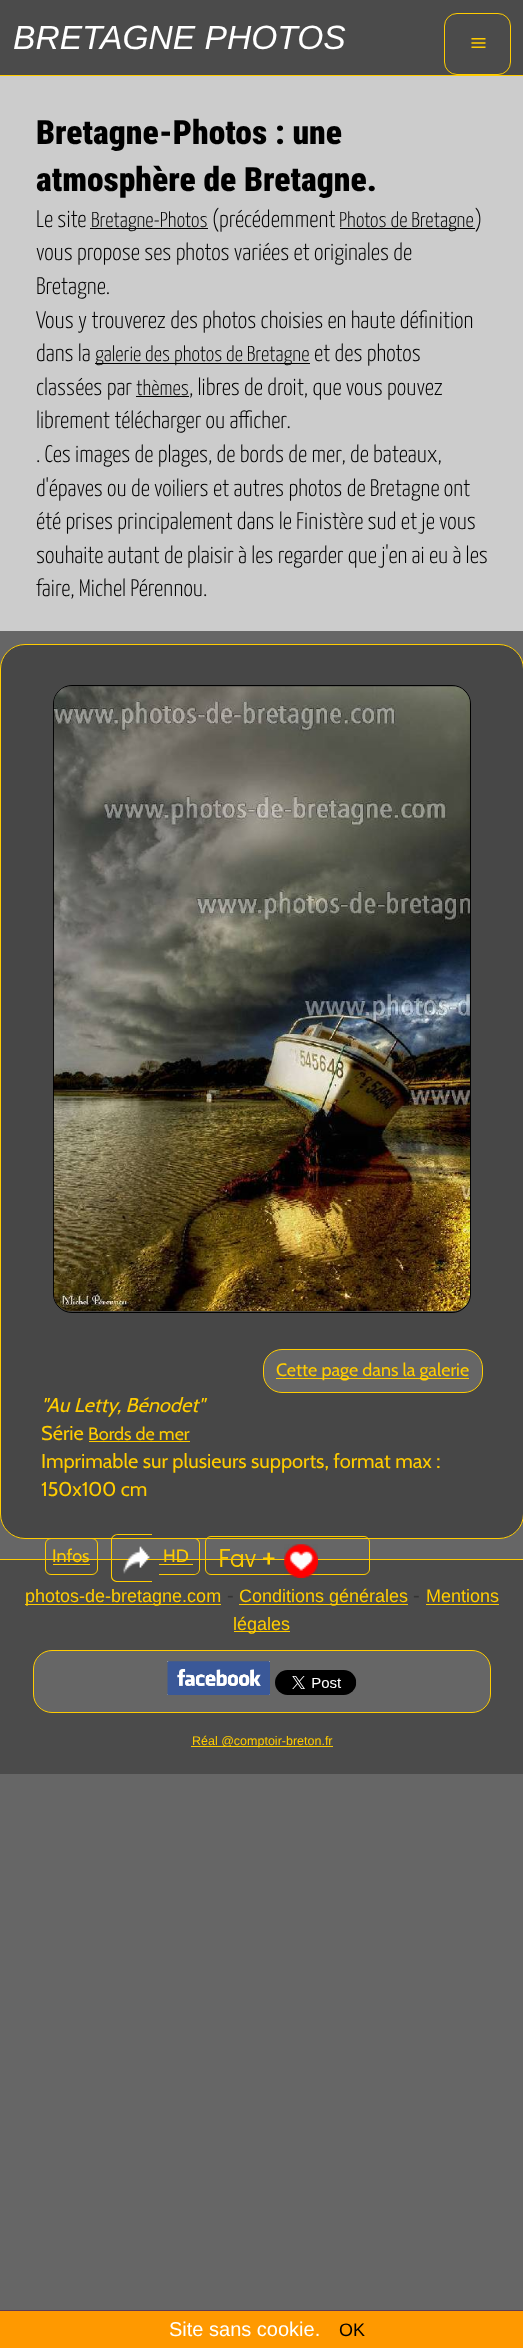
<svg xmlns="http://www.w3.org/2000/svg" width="523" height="2348">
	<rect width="100%" height="100%" fill="#666666" />
	<rect x="0" y="0" width="523" height="75" fill="#4B4B4B" />
	<rect x="0" y="75" width="523" height="1" fill="#FFCC00" />
	<text x="13" y="49" font-family="Liberation Sans" font-size="33.6" font-style="italic" fill="#FFFFFF">BRETAGNE PHOTOS</text>
	<rect x="444.5" y="13.5" width="66" height="61" rx="12.5" fill="none" stroke="#FFCC00" />
	<text x="470" y="53" font-family="Liberation Serif" font-size="30" fill="#FFCC00">≡</text>
	<rect x="0" y="76" width="523" height="555" fill="#CCCCCC" />
	<g font-family="Roboto Condensed" font-size="33.6" font-weight="900" fill="#000000">
		<text x="36" y="144">Bretagne-Photos : une</text>
		<text x="36" y="191">atmosphère de Bretagne.</text>
	</g>
	<text x="36" y="227" font-family="Yanone Kaffeesatz" font-size="24" font-weight="200" fill="#000000">Le site</text>
	<rect x="90" y="228" width="118" height="1" fill="#000000" />
	<text x="91" y="227" font-family="Yanone Kaffeesatz" font-size="21.5" font-weight="200" fill="#000000">Bretagne-Photos</text>
	<text x="212" y="227" font-family="Yanone Kaffeesatz" font-size="24" font-weight="200" fill="#000000">(précédemment</text>
	<rect x="340" y="228" width="135" height="1" fill="#000000" />
	<text x="339" y="227" font-family="Yanone Kaffeesatz" font-size="21.5" font-weight="200" fill="#000000">Photos de Bretagne</text>
	<g font-family="Yanone Kaffeesatz" font-size="24" font-weight="200" fill="#000000">
		<text x="475" y="227">)</text>
		<text x="36" y="260">vous propose ses photos variées et originales de</text>
		<text x="36" y="294">Bretagne.</text>
		<text x="36" y="328">Vous y trouverez des photos choisies en haute définition</text>
		<text x="36" y="361">dans la</text>
	</g>
	<rect x="95" y="363" width="215" height="1" fill="#000000" />
	<text x="95" y="361" font-family="Yanone Kaffeesatz" font-size="21.5" font-weight="200" fill="#000000">galerie des photos de Bretagne</text>
	<g font-family="Yanone Kaffeesatz" font-size="24" font-weight="200" fill="#000000">
		<text x="314" y="361">et des photos</text>
		<text x="36" y="395">classées par</text>
	</g>
	<text x="136" y="395" font-family="Yanone Kaffeesatz" font-size="21.5" font-weight="200" fill="#000000">thèmes</text>
	<rect x="136" y="396" width="53" height="1" fill="#000000" />
	<g font-family="Yanone Kaffeesatz" font-size="24" font-weight="200" fill="#000000">
		<text x="189" y="395">, libres de droit, que vous pouvez</text>
		<text x="36" y="428">librement télécharger ou afficher.</text>
		<text x="36" y="462">. Ces images de plages, de bords de mer, de bateaux,</text>
		<text x="36" y="496">d'épaves ou de voiliers et autres photos de Bretagne ont</text>
		<text x="36" y="529">été prises principalement dans le Finistère sud et je vous</text>
		<text x="36" y="563">souhaite autant de plaisir à les regarder que j'en ai eu à les</text>
		<text x="36" y="596">faire, Michel Pérennou.</text>
	</g>
	<rect x="0.5" y="644.5" width="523" height="894" rx="24.5" fill="#474747" stroke="#FFCC00" />
	<rect x="53.5" y="685.5" width="417" height="627" rx="18.5" fill="none" stroke="#000000" />
	<image x="53" y="686" width="417" height="626" href="assets/img1.png" />
	<rect x="263.5" y="1349.5" width="219" height="43" rx="18.5" fill="#666666" stroke="#FFCC00" />
	<rect x="276" y="1378" width="193" height="1" fill="#FFCC00" />
	<text x="276" y="1376" font-family="Cabin" font-size="18" fill="#FFCC00">Cette page dans la galerie</text>
	<text x="41" y="1412" font-family="Cabin" font-size="20" font-style="italic" fill="#FFCC00">"Au Letty, Bénodet"</text>
	<text x="41" y="1440" font-family="Cabin" font-size="20" fill="#FFCC00">Série</text>
	<text x="88" y="1440" font-family="Cabin" font-size="18" fill="#FFCC00">Bords de mer</text>
	<rect x="89" y="1441" width="101" height="1" fill="#FFCC00" />
	<g font-family="Cabin" font-size="20" fill="#FFCC00">
		<text x="41" y="1468">Imprimable sur plusieurs supports, format max :</text>
		<text x="41" y="1496">150x100 cm</text>
	</g>
	<rect x="0" y="1560" width="523" height="214" fill="#4B4B4B" />
	<rect x="0" y="1559" width="523" height="1" fill="#FFCC00" />
	<rect x="205.5" y="1536.5" width="164" height="38" rx="5.5" fill="none" stroke="#FFCC00" />
	<rect x="45.5" y="1538.5" width="52" height="36" rx="5.5" fill="none" stroke="#FFCC00" />
	<text x="52" y="1562" font-family="Cabin" font-size="18" fill="#FFCC00">Infos</text>
	<rect x="53" y="1564" width="37" height="1" fill="#FFCC00" />
	<path d="M118 1534H152V1582H118C114 1582 111 1580 111 1576V1540C111 1537 114 1534 118 1534ZM118 1535H152V1581H118C115 1581 112 1579 112 1576V1540C112 1537 115 1535 118 1535Z" fill="#FFCC00" fill-rule="evenodd" />
	<image x="123" y="1546" width="27" height="28" href="assets/img2.png" />
	<path d="M159 1538H194C197 1538 200 1540 200 1544V1569C200 1572 197 1575 194 1575H159ZM159 1539H194C197 1539 199 1541 199 1544V1569C199 1572 197 1574 194 1574H159Z" fill="#FFCC00" fill-rule="evenodd" />
	<text x="163" y="1562" font-family="Cabin" font-size="18" fill="#FFCC00">HD</text>
	<rect x="159" y="1564" width="34" height="1" fill="#FFCC00" />
	<image x="220" y="1544" width="98" height="34" href="assets/img3.png" />
	<rect x="25" y="1604" width="196" height="1" fill="#FFCC00" />
	<text x="25" y="1602" font-family="Liberation Sans" font-size="18" fill="#FFCC00">photos-de-bretagne.com</text>
	<text x="227" y="1602" font-family="Liberation Sans" font-size="20" fill="#333333">-</text>
	<rect x="239" y="1604" width="169" height="1" fill="#FFCC00" />
	<text x="239" y="1602" font-family="Liberation Sans" font-size="18" fill="#FFCC00">Conditions générales</text>
	<text x="413" y="1602" font-family="Liberation Sans" font-size="20" fill="#333333">-</text>
	<text x="426" y="1602" font-family="Liberation Sans" font-size="18" fill="#FFCC00">Mentions</text>
	<rect x="426" y="1604" width="73" height="1" fill="#FFCC00" />
	<rect x="234" y="1631" width="56" height="1" fill="#FFCC00" />
	<text x="233" y="1630" font-family="Liberation Sans" font-size="18" fill="#FFCC00">légales</text>
	<rect x="33.5" y="1650.5" width="457" height="62" rx="18.5" fill="#666666" stroke="#FFCC00" />
	<image x="167" y="1661" width="103" height="34" href="assets/img4.png" />
	<image x="275" y="1670" width="82" height="25" href="assets/img5.png" />
	<rect x="191" y="1746" width="142" height="1" fill="#FFCC00" />
	<text x="192" y="1745" font-family="Liberation Sans" font-size="12.5" fill="#FFCC00">Réal @comptoir-breton.fr</text>
	<rect x="0" y="2311" width="523" height="37" fill="#FF9900" />
	<rect x="0" y="2310" width="523" height="1" fill="#5E3C54" />
	<text x="169" y="2336" font-family="Liberation Sans" font-size="20" fill="#FFFFFF">Site sans cookie.</text>
	<text x="339" y="2336" font-family="Liberation Sans" font-size="18" fill="#000000">OK</text>
</svg>
